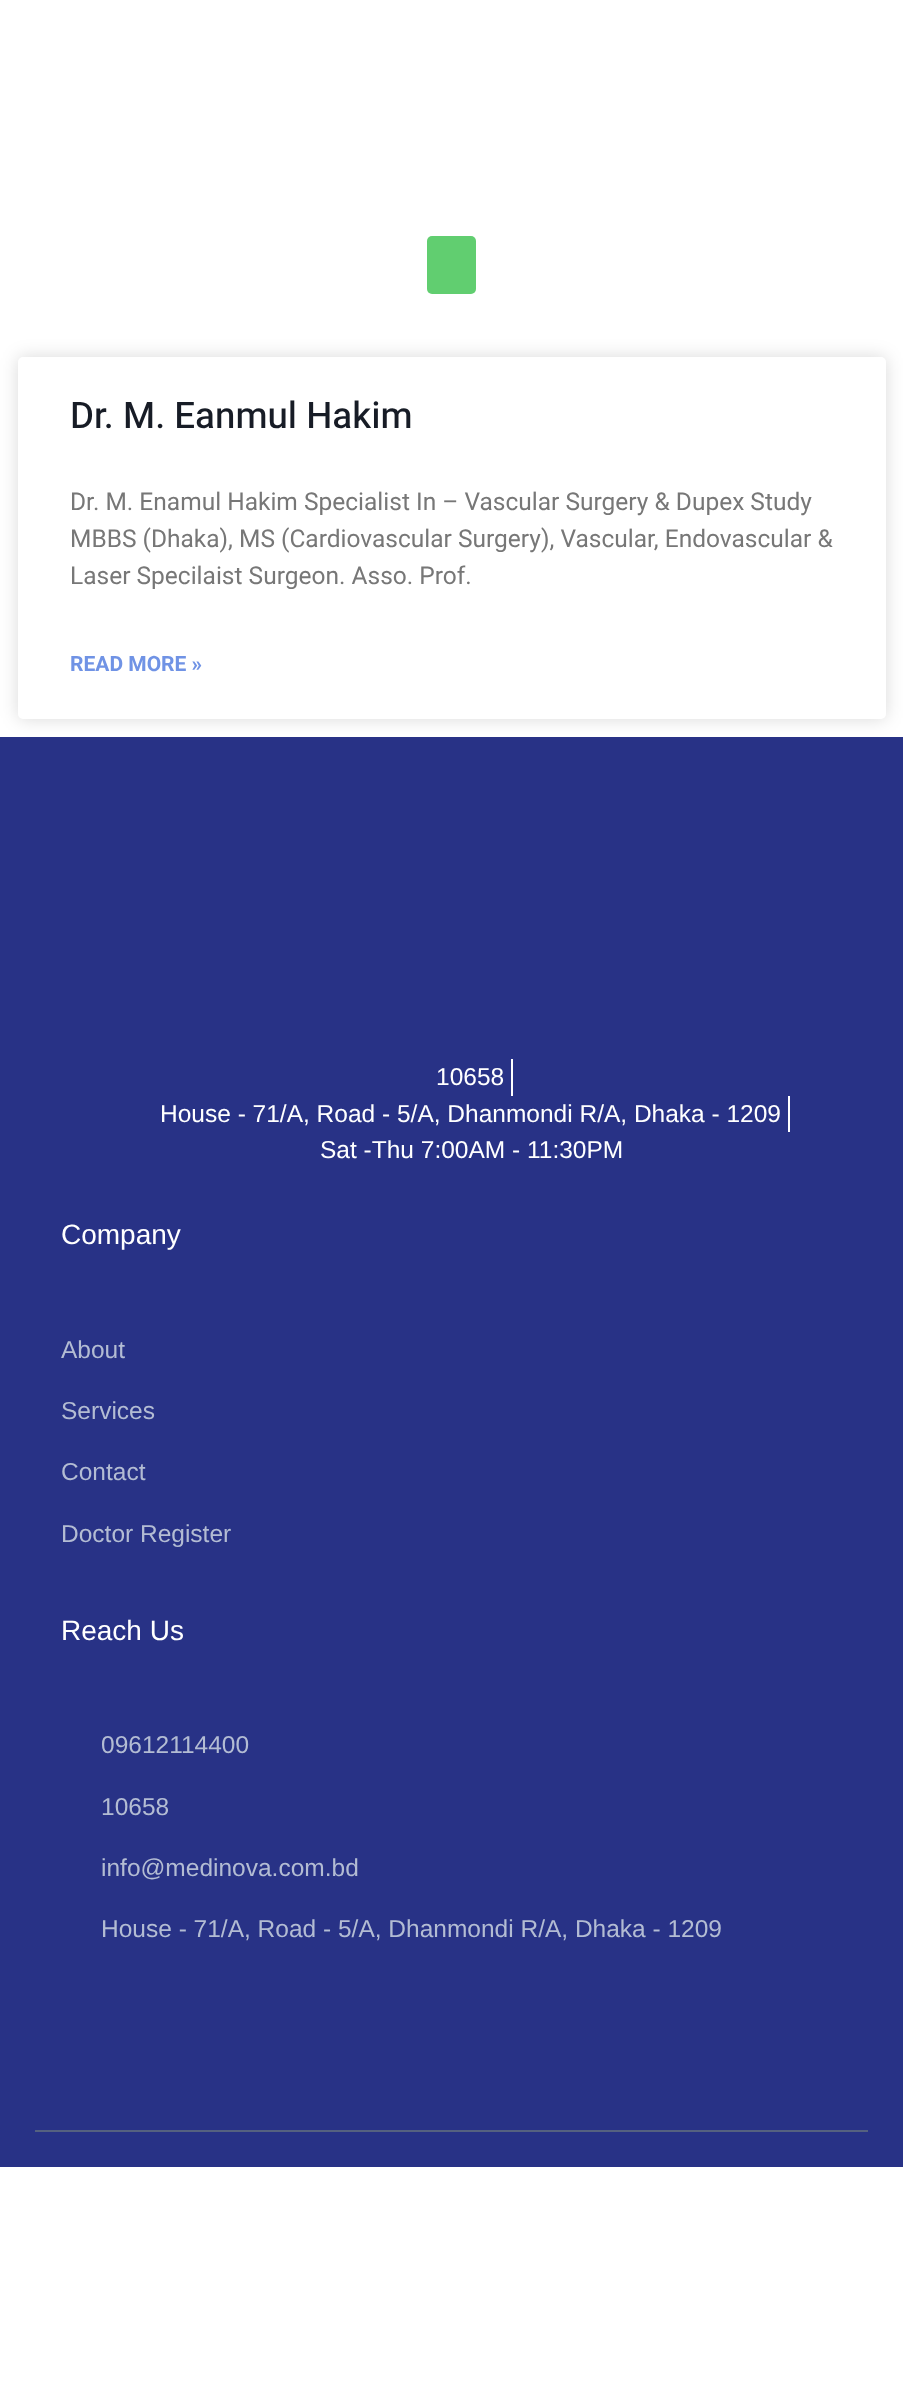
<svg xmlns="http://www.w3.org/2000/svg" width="903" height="2402">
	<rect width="100%" height="100%" fill="#FFFFFF" />
	<rect x="427" y="236" width="49" height="58" rx="5" fill="#61CE70" />
	<rect x="18" y="357" width="868" height="362" rx="5" fill="#000000" fill-opacity="0.15" filter="blur(9px)" />
	<rect x="18" y="357" width="868" height="362" rx="5" fill="#FFFFFF" />
	<text x="70" y="428" font-family="Heebo" font-size="36.75" font-weight="500" fill="#171C26">Dr. M. Eanmul Hakim</text>
	<g font-family="Roboto" font-size="24.5" fill="#777777">
		<text x="70" y="510">Dr. M. Enamul Hakim Specialist In – Vascular Surgery &amp; Dupex Study</text>
		<text x="70" y="547">MBBS (Dhaka), MS (Cardiovascular Surgery), Vascular, Endovascular &amp;</text>
		<text x="70" y="584">Laser Specilaist Surgeon. Asso. Prof.</text>
	</g>
	<text x="70" y="671" font-family="Roboto" font-size="21" font-weight="700" fill="#7093E5">READ MORE »</text>
	<rect x="0" y="737" width="903" height="1430" fill="#283286" />
	<rect x="35" y="2130" width="833" height="2" fill="#556180" />
	<text x="436" y="1085" font-family="Liberation Sans" font-size="24.5" fill="#FFFFFF">10658</text>
	<rect x="511" y="1059" width="2" height="37" fill="#FFFFFF" />
	<text x="160" y="1122" font-family="Liberation Sans" font-size="24.5" fill="#FFFFFF">House - 71/A, Road - 5/A, Dhanmondi R/A, Dhaka - 1209</text>
	<rect x="788" y="1096" width="2" height="36" fill="#FFFFFF" />
	<text x="320" y="1158" font-family="Liberation Sans" font-size="24.5" fill="#FFFFFF">Sat -Thu 7:00AM - 11:30PM</text>
	<text x="61" y="1244" font-family="Liberation Sans" font-size="28" fill="#FFFFFF">Company</text>
	<g font-family="Liberation Sans" font-size="24.5" fill="#B3BCD3">
		<text x="61" y="1358">About</text>
		<text x="61" y="1419">Services</text>
		<text x="61" y="1480">Contact</text>
		<text x="61" y="1542">Doctor Register</text>
	</g>
	<text x="61" y="1640" font-family="Liberation Sans" font-size="28" fill="#FFFFFF">Reach Us</text>
	<g font-family="Liberation Sans" font-size="24.5" fill="#B3BCD3">
		<text x="101" y="1753">09612114400</text>
		<text x="101" y="1815">10658</text>
		<text x="101" y="1876">info@medinova.com.bd</text>
		<text x="101" y="1937">House - 71/A, Road - 5/A, Dhanmondi R/A, Dhaka - 1209</text>
	</g>
</svg>
